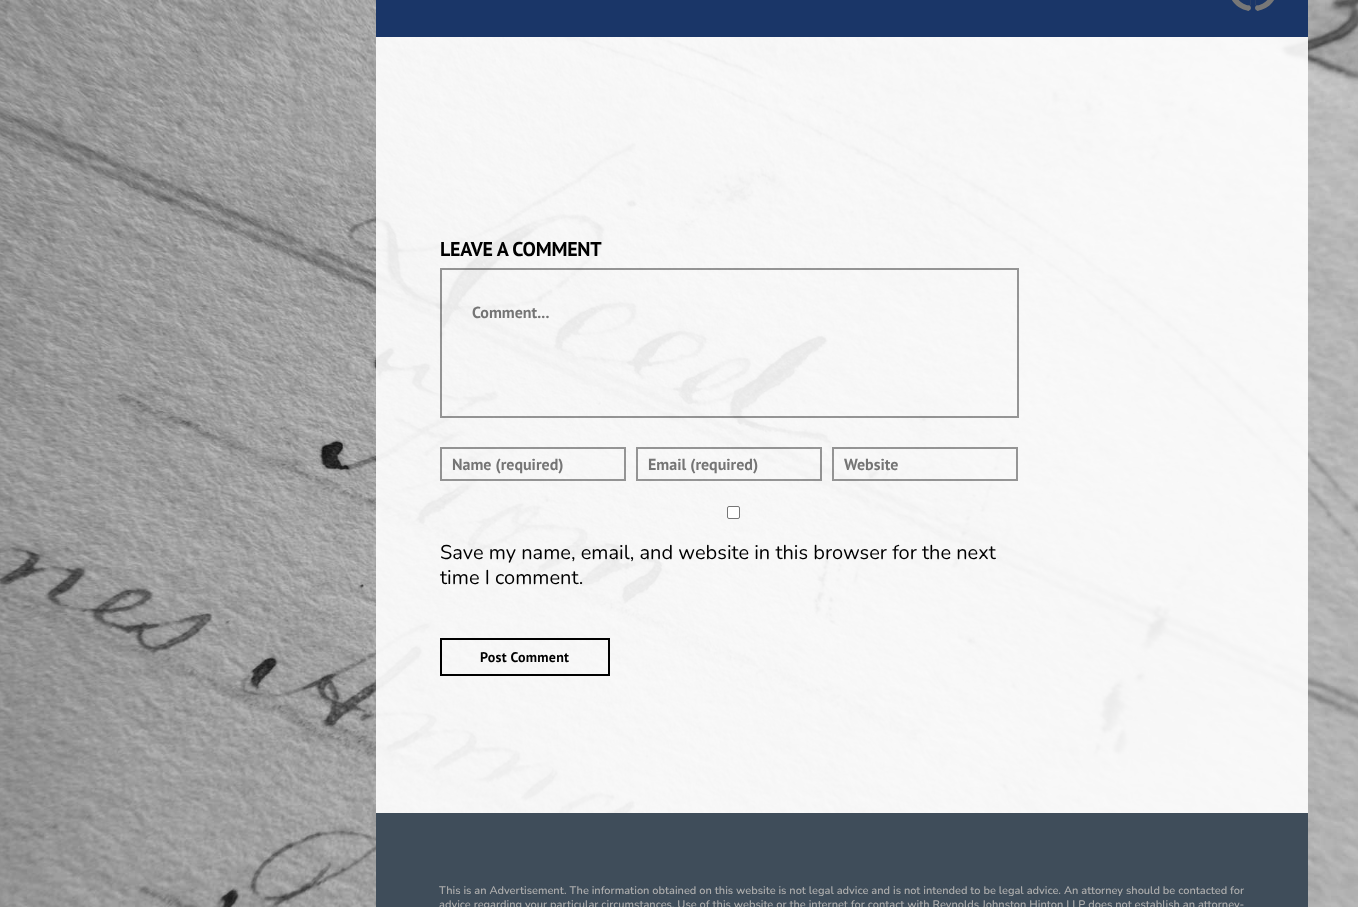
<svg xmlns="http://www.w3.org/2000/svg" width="1358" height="907">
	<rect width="100%" height="100%" fill="#FFFFFF" />
	<image x="0" y="0" width="1358" height="907" href="assets/img1.png" />
	<rect x="376" y="0" width="932" height="37" fill="#1A3668" />
	<path d="M1257-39L1249 11C1216 5 1225-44 1257-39ZM1256-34L1250 6C1224 1 1231-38 1256-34Z" fill="#777777" fill-rule="evenodd" />
	<path d="M1249 5.5C1252 6 1251.5 11 1248 10.5C1245 10 1246 5 1249 5.5Z" fill="#777777" />
	<path d="M1249-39C1281-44 1290 5 1257 11ZM1250-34C1275-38 1282 1 1256 6Z" fill="#777777" fill-rule="evenodd" />
	<path d="M1257 5.5C1260 5 1261 10 1258 10.5C1254.5 11 1254 6 1257 5.5Z" fill="#777777" />
	<rect x="376" y="37" width="932" height="776" fill="#FFFFFF" fill-opacity="0.9" />
	<text x="440" y="256" font-family="PT Sans" font-size="20" font-weight="700" letter-spacing="-0.25" fill="#000000">LEAVE A COMMENT</text>
	<rect x="441" y="269" width="577" height="148" fill="none" stroke="#000000" stroke-opacity="0.4" stroke-width="2" />
	<text x="472" y="318" font-family="PT Sans" font-size="16" font-weight="700" fill="#757575">Comment...</text>
	<rect x="441" y="448" width="184" height="32" fill="none" stroke="#000000" stroke-opacity="0.4" stroke-width="2" />
	<text x="452" y="470" font-family="PT Sans" font-size="16" font-weight="700" fill="#757575">Name (required)</text>
	<rect x="637" y="448" width="184" height="32" fill="none" stroke="#000000" stroke-opacity="0.4" stroke-width="2" />
	<text x="648" y="470" font-family="PT Sans" font-size="16" font-weight="700" fill="#757575">Email (required)</text>
	<rect x="833" y="448" width="184" height="32" fill="none" stroke="#000000" stroke-opacity="0.4" stroke-width="2" />
	<text x="844" y="470" font-family="PT Sans" font-size="16" font-weight="700" fill="#757575">Website</text>
	<rect x="727.5" y="506.5" width="12" height="12" rx="1.5" fill="#FFFFFF" stroke="#767676" />
	<g font-family="Nunito" font-size="20" fill="#000000">
		<text x="440" y="559">Save my name, email, and website in this browser for the next</text>
		<text x="440" y="584">time I comment.</text>
	</g>
	<rect x="441" y="639" width="168" height="36" fill="none" stroke="#000000" stroke-width="2" />
	<text x="480" y="662" font-family="PT Sans" font-size="14" font-weight="700" letter-spacing="0.25" fill="#000000">Post Comment</text>
	<rect x="376" y="813" width="932" height="94" fill="#3F4D5A" />
	<g font-family="Nunito" font-size="11" font-weight="600" fill="#ADADAD">
		<text x="439" y="894">This is an Advertisement. The information obtained on this website is not legal advice and is not intended to be legal advice. An attorney should be contacted for</text>
		<text x="439" y="908">advice regarding your particular circumstances. Use of this website or the internet for contact with Reynolds Johnston Hinton LLP does not establish an attorney-</text>
	</g>
</svg>
